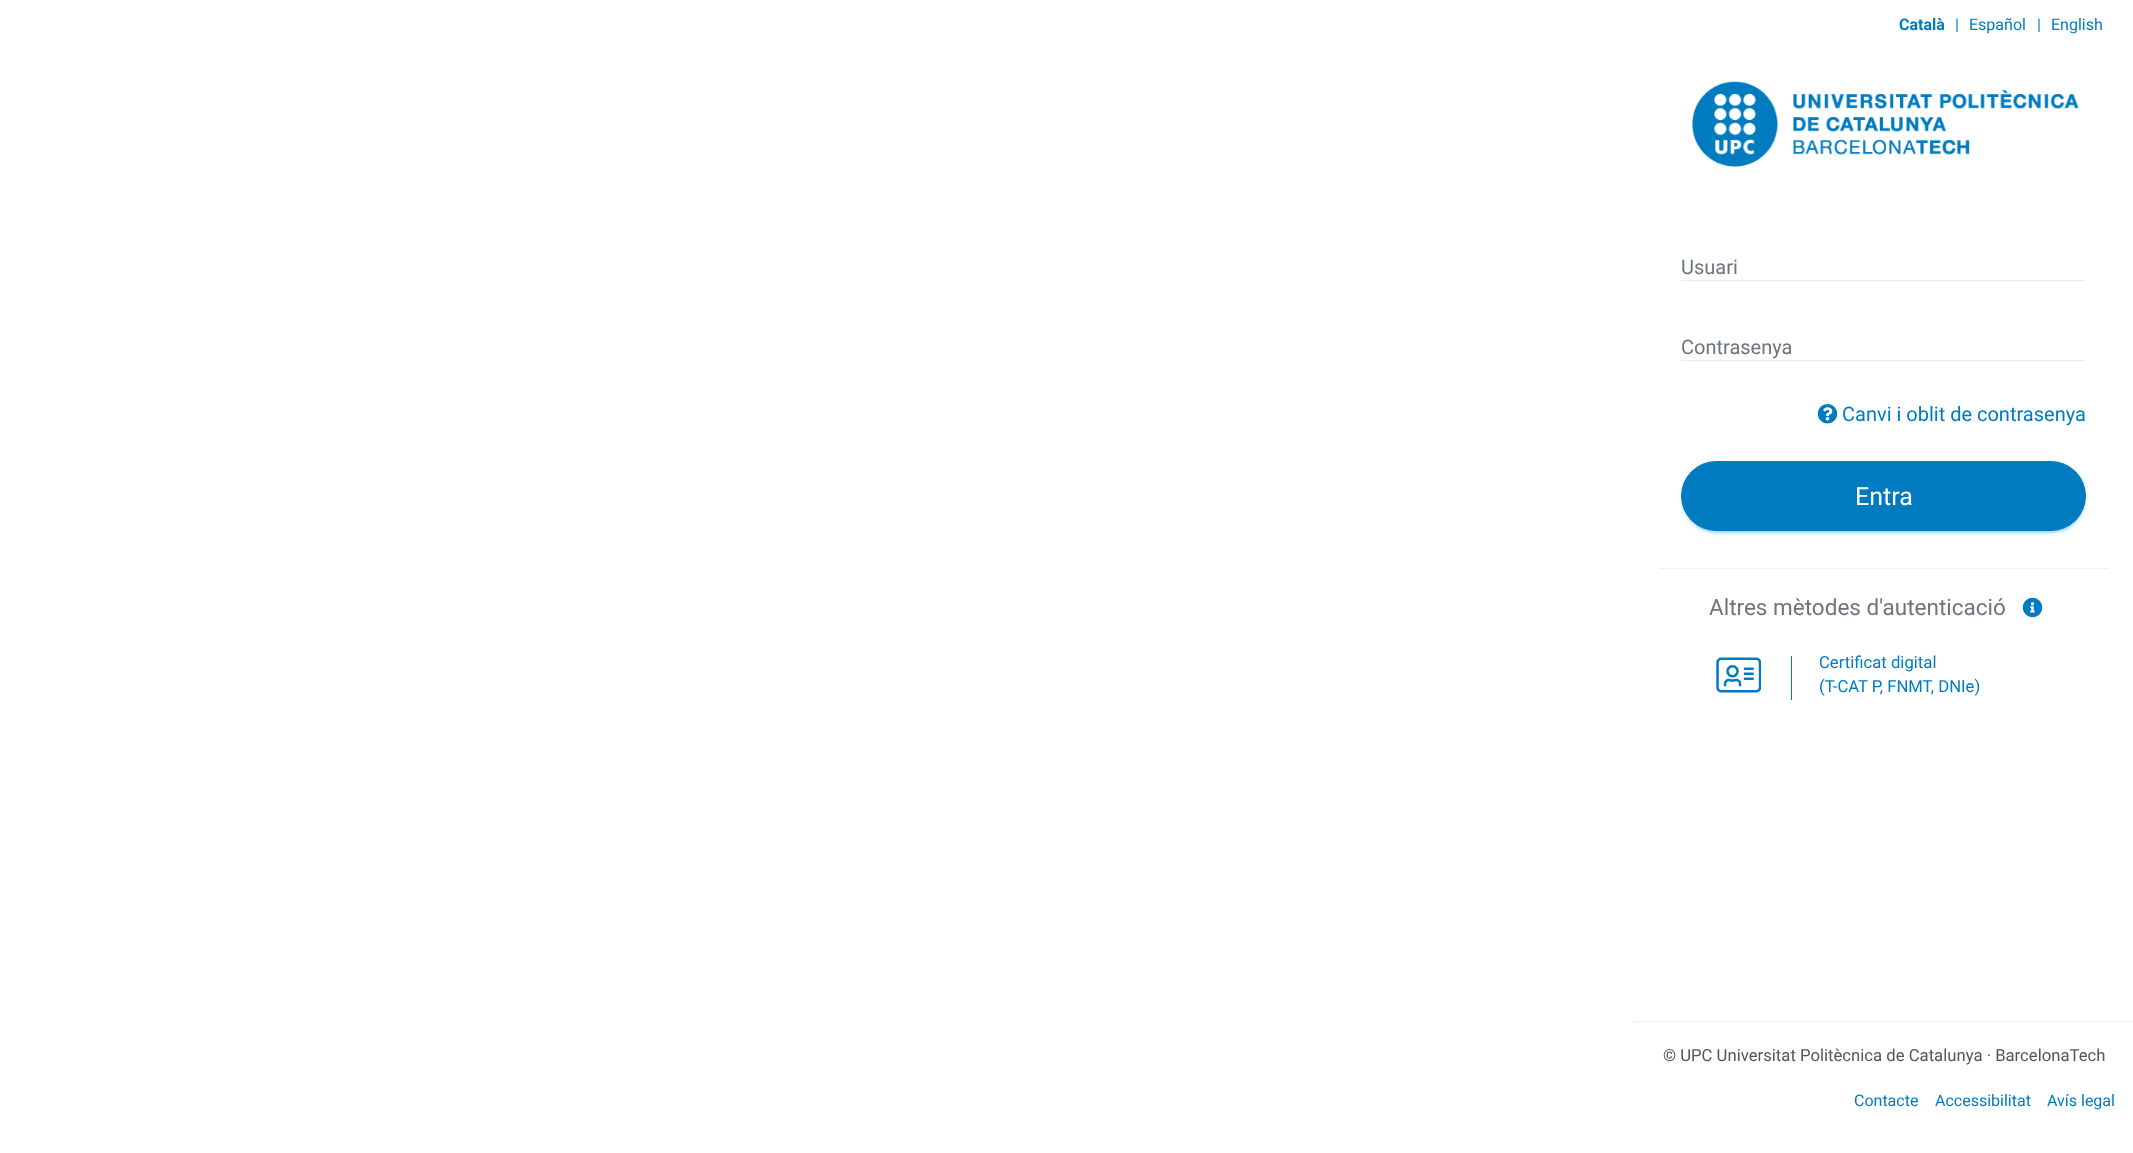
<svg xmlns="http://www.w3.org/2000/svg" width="2133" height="1153">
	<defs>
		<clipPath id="clip1"><rect x="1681" y="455" width="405" height="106" /></clipPath>
	</defs>
	<rect width="100%" height="100%" fill="#FFFFFF" />
	<text x="1899" y="30" font-family="Roboto" font-size="16" font-weight="700" fill="#007BC0">Català</text>
	<g font-family="Roboto" font-size="16" fill="#007BC0">
		<text x="1955" y="30">|</text>
		<text x="1969" y="30">Español</text>
		<text x="2037" y="30">|</text>
		<text x="2051" y="30">English</text>
	</g>
	<image x="1692" y="81" width="387" height="86" href="assets/img1.png" />
	<rect x="1681" y="280" width="405" height="1" fill="#E9EDF2" />
	<text x="1681" y="274" font-family="Roboto" font-size="20" fill="#6C757D">Usuari</text>
	<rect x="1681" y="360" width="405" height="1" fill="#E9EDF2" />
	<text x="1681" y="354" font-family="Roboto" font-size="20" fill="#6C757D">Contrasenya</text>
	<image x="1817" y="404" width="21" height="20" href="assets/img2.png" />
	<text x="1842" y="421" font-family="Roboto" font-size="20" fill="#007BC0">Canvi i oblit de contrasenya</text>
	<g clip-path="url(#clip1)">
		<rect x="1681" y="463" width="405" height="70" rx="35" fill="#42A5F5" fill-opacity="0.12" filter="blur(3px)" />
	</g>
	<rect x="1684" y="468" width="400" height="65" rx="32.5" fill="#42A5F5" fill-opacity="0.2" filter="blur(0.5px)" />
	<rect x="1681" y="464" width="405" height="70" rx="35" fill="#42A5F5" fill-opacity="0.14" filter="blur(1px)" />
	<rect x="1681.5" y="461.5" width="404" height="69" rx="34.5" fill="#007BC0" stroke="#007BC0" />
	<text x="1855" y="505" font-family="Roboto" font-size="25" fill="#FFFFFF">Entra</text>
	<rect x="1659" y="568" width="450" height="1" fill="#EDEFF0" />
	<text x="1709" y="615" font-family="Roboto" font-size="22.5" fill="#6C757D">Altres mètodes d'autenticació</text>
	<image x="2022" y="597" width="21" height="21" href="assets/img3.png" />
	<rect x="1791" y="656" width="1" height="44" fill="#007BC0" />
	<image x="1716" y="657" width="45" height="36" href="assets/img4.png" />
	<g font-family="Roboto" font-size="16.7" fill="#007BC0">
		<text x="1819" y="668">Certificat digital</text>
		<text x="1819" y="692">(T-CAT P, FNMT, DNIe)</text>
	</g>
	<rect x="1634" y="1021" width="499" height="1" fill="#EDEFF0" />
	<text x="1663" y="1061" font-family="Roboto" font-size="16.7" fill="#555555">© UPC Universitat Politècnica de Catalunya · BarcelonaTech</text>
	<g font-family="Roboto" font-size="16" fill="#007BC0">
		<text x="1854" y="1106">Contacte</text>
		<text x="1935" y="1106">Accessibilitat</text>
		<text x="2047" y="1106">Avís legal</text>
	</g>
</svg>
